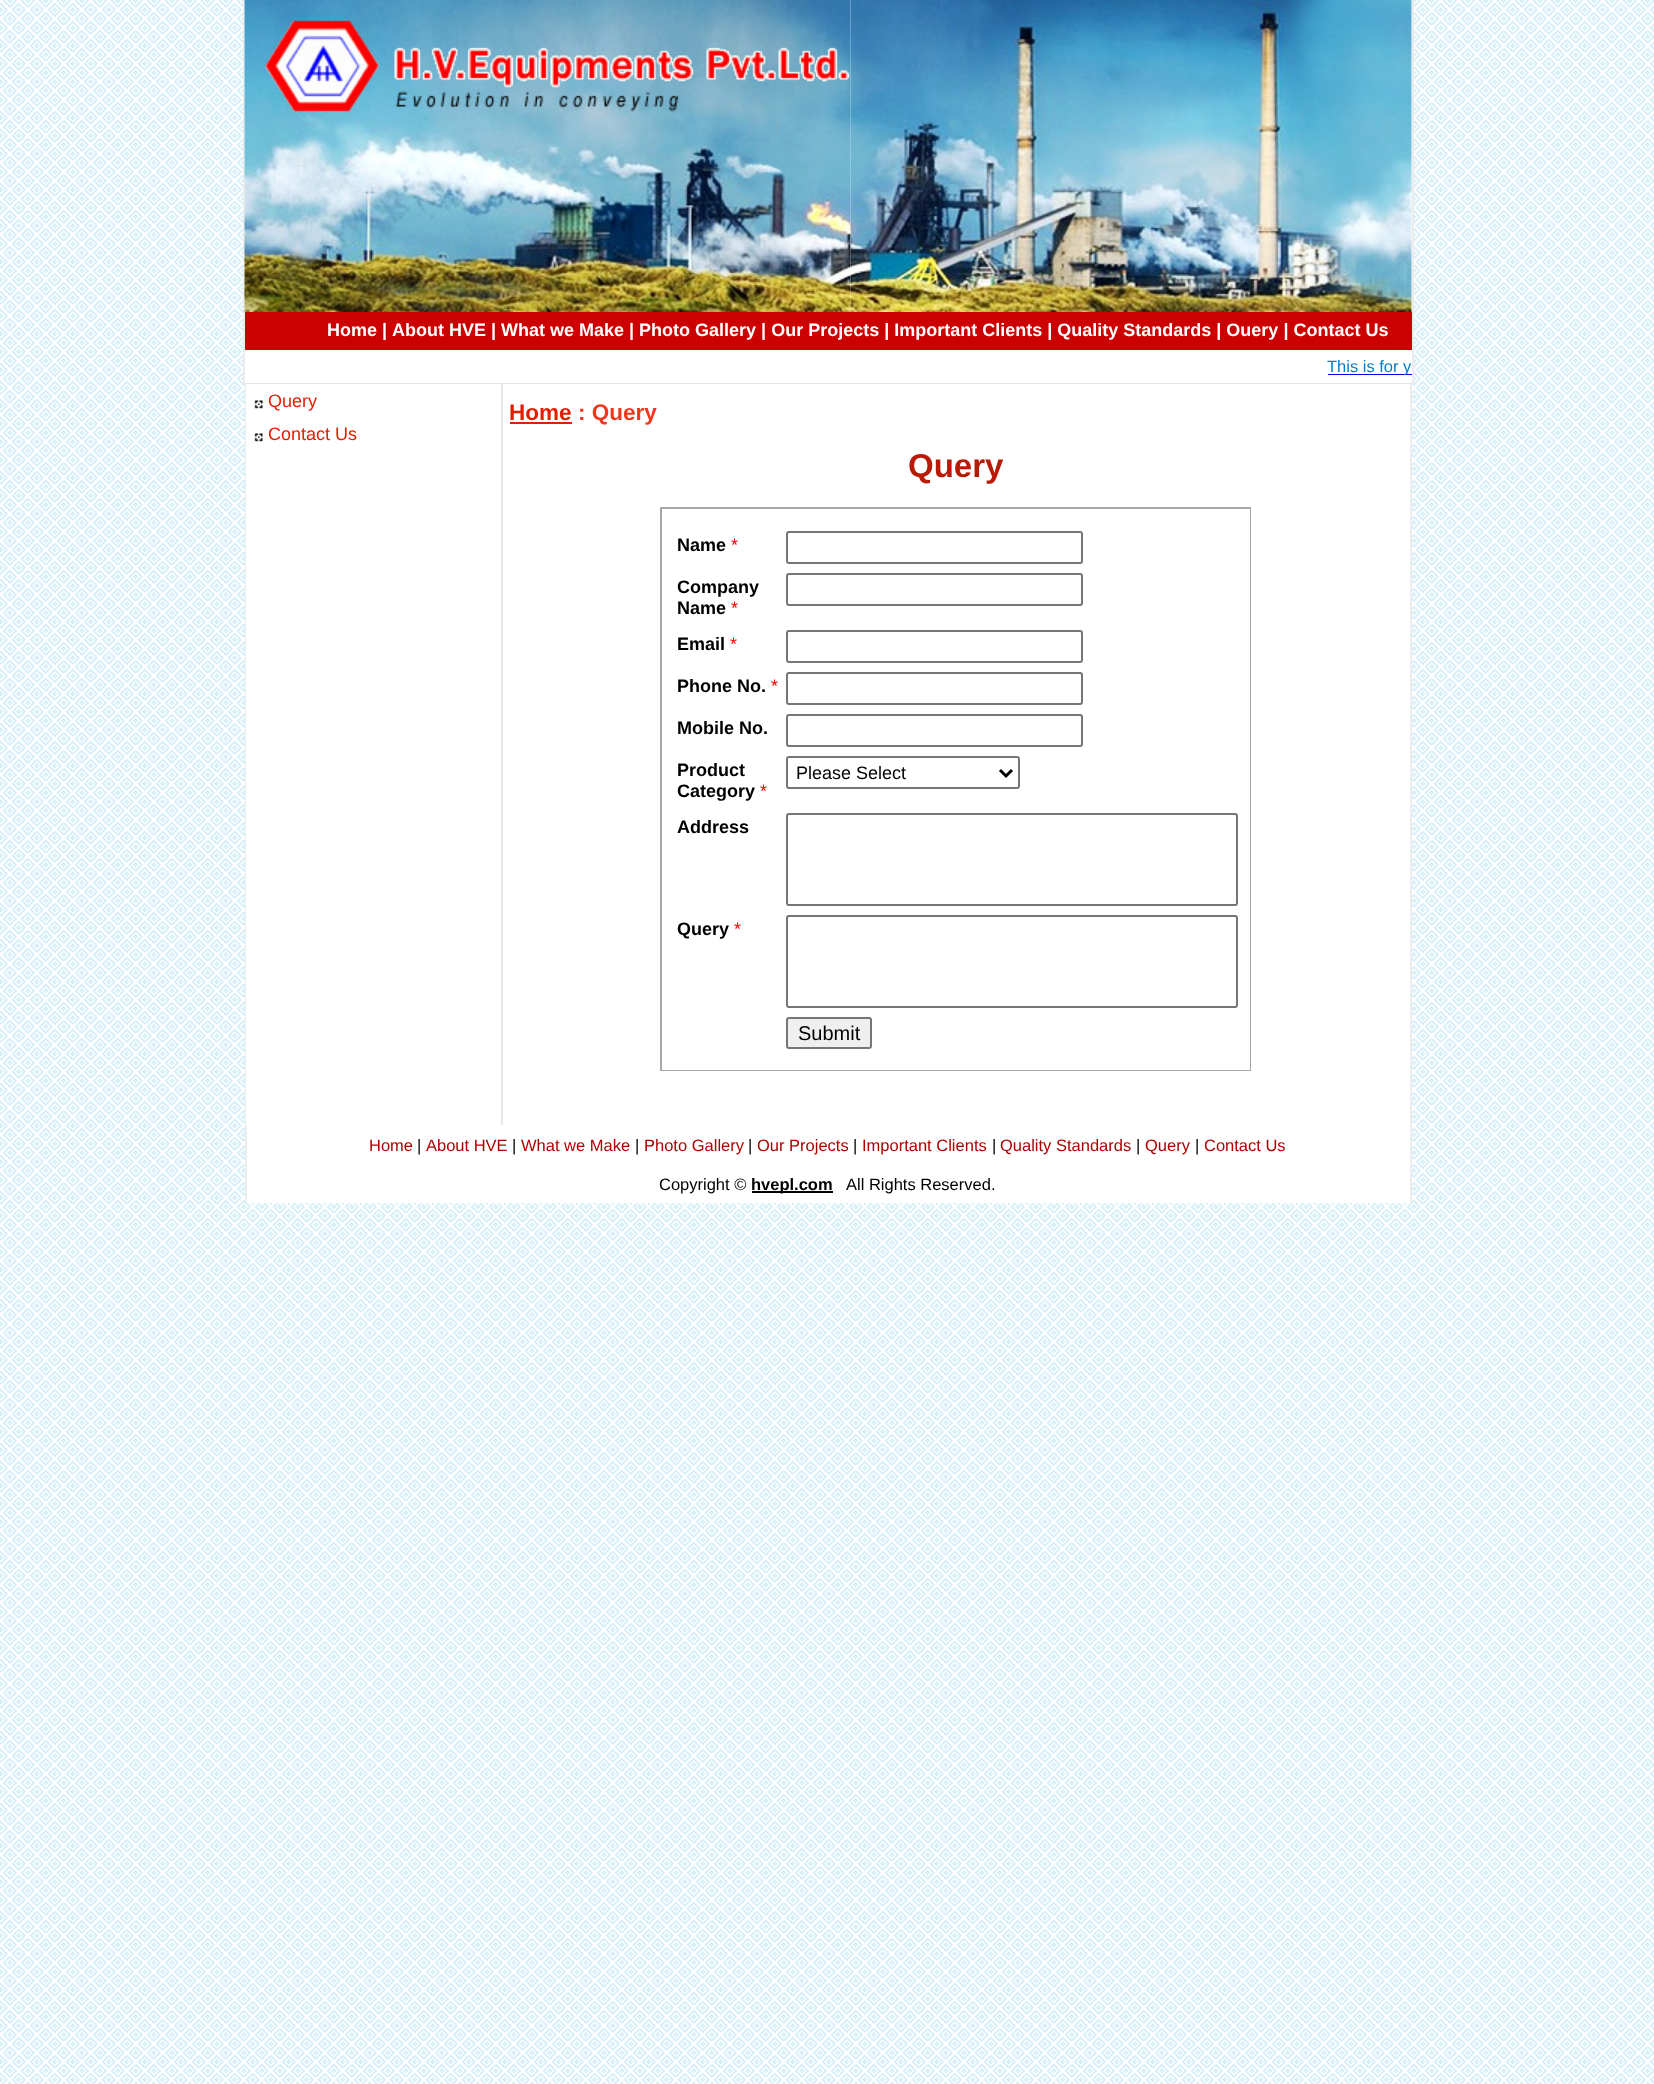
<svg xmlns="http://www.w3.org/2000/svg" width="1654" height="2084">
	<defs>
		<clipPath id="clip1"><rect x="245" y="357" width="1167" height="18" /></clipPath>
	</defs>
	<rect width="100%" height="100%" fill="#FFFFFF" />
	<image x="0" y="0" width="1654" height="2084" href="assets/img1.png" />
	<rect x="245" y="0" width="1167" height="383" fill="#FFFFFF" />
	<rect x="1412" y="0" width="2" height="384" fill="#ECECEC" />
	<rect x="243" y="0" width="2" height="384" fill="#ECECEC" />
	<image x="244" y="0" width="1168" height="312" href="assets/img2.png" />
	<image x="244" y="0" width="293" height="312" href="assets/img3.png" />
	<image x="537" y="0" width="314" height="312" href="assets/img4.png" />
	<image x="850" y="0" width="293" height="312" href="assets/img5.png" />
	<image x="1143" y="0" width="269" height="312" href="assets/img6.png" />
	<rect x="245" y="312" width="1167" height="38" fill="#CC0000" />
	<g font-family="Liberation Sans" font-size="18" font-weight="700" fill="#FFFFFF">
		<text x="327" y="336">Home</text>
		<text x="382" y="336">|</text>
		<text x="392" y="336">About HVE | What we Make | Photo Gallery | Our Projects | Important Clients | Quality Standards | Ouery | Contact Us</text>
	</g>
	<rect x="1328" y="374" width="84" height="1" fill="#0000EE" />
	<g clip-path="url(#clip1)">
		<text x="1327" y="372" font-family="Liberation Sans" font-size="16.5" fill="#057CC7">This is for y</text>
	</g>
	<rect x="245" y="383" width="1167" height="1" fill="#E5E5E5" />
	<rect x="503" y="384" width="907" height="741" fill="#FFFFFF" />
	<rect x="1410" y="384" width="2" height="819" fill="#ECECEC" />
	<rect x="245" y="384" width="1" height="741" fill="#ECECEC" />
	<rect x="246" y="384" width="255" height="741" fill="#FFFFFF" />
	<rect x="501" y="384" width="2" height="741" fill="#E8E8E8" />
	<image x="254" y="400" width="9" height="9" href="assets/img7.png" />
	<text x="268" y="407" font-family="Liberation Sans" font-size="18" fill="#E41D02">Query</text>
	<image x="254" y="433" width="9" height="9" href="assets/img7.png" />
	<text x="268" y="440" font-family="Liberation Sans" font-size="18" fill="#E41D02">Contact Us</text>
	<text x="509" y="420" font-family="Liberation Sans" font-size="22.5" font-weight="700" fill="#E41D02">Home</text>
	<rect x="510" y="422" width="62" height="2" fill="#E41D02" />
	<text x="578" y="420" font-family="Liberation Sans" font-size="22.5" font-weight="700" fill="#EF371E">: Query</text>
	<text x="908" y="477" font-family="Liberation Sans" font-size="33" font-weight="700" fill="#B81A05">Query</text>
	<rect x="660" y="507" width="591" height="564" fill="#A8A8A8" />
	<rect x="662" y="509" width="588" height="561" fill="#FFFFFF" />
	<text x="677" y="551" font-family="Liberation Sans" font-size="18" font-weight="700" fill="#000000">Name</text>
	<text x="731" y="551" font-family="Liberation Sans" font-size="18" fill="#FF0000">*</text>
	<rect x="787" y="532" width="295" height="31" rx="2" fill="none" stroke="#767676" stroke-width="2" />
	<g font-family="Liberation Sans" font-size="18" font-weight="700" fill="#000000">
		<text x="677" y="593">Company</text>
		<text x="677" y="614">Name</text>
	</g>
	<text x="731" y="614" font-family="Liberation Sans" font-size="18" fill="#FF0000">*</text>
	<rect x="787" y="574" width="295" height="31" rx="2" fill="none" stroke="#767676" stroke-width="2" />
	<text x="677" y="650" font-family="Liberation Sans" font-size="18" font-weight="700" fill="#000000">Email</text>
	<text x="730" y="650" font-family="Liberation Sans" font-size="18" fill="#FF0000">*</text>
	<rect x="787" y="631" width="295" height="31" rx="2" fill="none" stroke="#767676" stroke-width="2" />
	<text x="677" y="692" font-family="Liberation Sans" font-size="18" font-weight="700" fill="#000000">Phone No.</text>
	<text x="771" y="692" font-family="Liberation Sans" font-size="18" fill="#FF0000">*</text>
	<rect x="787" y="673" width="295" height="31" rx="2" fill="none" stroke="#767676" stroke-width="2" />
	<text x="677" y="734" font-family="Liberation Sans" font-size="18" font-weight="700" fill="#000000">Mobile No.</text>
	<rect x="787" y="715" width="295" height="31" rx="2" fill="none" stroke="#767676" stroke-width="2" />
	<g font-family="Liberation Sans" font-size="18" font-weight="700" fill="#000000">
		<text x="677" y="776">Product</text>
		<text x="677" y="797">Category</text>
	</g>
	<text x="760" y="797" font-family="Liberation Sans" font-size="18" fill="#FF0000">*</text>
	<rect x="787" y="757" width="232" height="31" rx="2" fill="none" stroke="#767676" stroke-width="2" />
	<path d="M1000 770L1006 776L1012 770" fill="none" stroke="#000000" stroke-width="3" />
	<text x="796" y="779" font-family="Liberation Sans" font-size="18" fill="#000000">Please Select</text>
	<text x="677" y="833" font-family="Liberation Sans" font-size="18" font-weight="700" fill="#000000">Address</text>
	<rect x="787" y="814" width="450" height="91" rx="2" fill="none" stroke="#767676" stroke-width="2" />
	<text x="677" y="935" font-family="Liberation Sans" font-size="18" font-weight="700" fill="#000000">Query</text>
	<text x="734" y="935" font-family="Liberation Sans" font-size="18" fill="#FF0000">*</text>
	<rect x="787" y="916" width="450" height="91" rx="2" fill="none" stroke="#767676" stroke-width="2" />
	<rect x="787" y="1018" width="84" height="30" rx="2" fill="#EFEFEF" stroke="#767676" stroke-width="2" />
	<text x="798" y="1040" font-family="Liberation Sans" font-size="20" fill="#000000">Submit</text>
	<rect x="247" y="1125" width="1163" height="78" fill="#FFFFFF" />
	<rect x="245" y="1125" width="2" height="78" fill="#ECECEC" />
	<text x="369" y="1151" font-family="Liberation Sans" font-size="16.5" fill="#AD0000">Home</text>
	<text x="417" y="1151" font-family="Liberation Sans" font-size="16.5" fill="#000000">|</text>
	<text x="426" y="1151" font-family="Liberation Sans" font-size="16.5" fill="#AD0000">About HVE</text>
	<text x="512" y="1151" font-family="Liberation Sans" font-size="16.5" fill="#000000">|</text>
	<text x="521" y="1151" font-family="Liberation Sans" font-size="16.5" fill="#AD0000">What we Make</text>
	<text x="635" y="1151" font-family="Liberation Sans" font-size="16.5" fill="#000000">|</text>
	<text x="644" y="1151" font-family="Liberation Sans" font-size="16.5" fill="#AD0000">Photo Gallery</text>
	<text x="748" y="1151" font-family="Liberation Sans" font-size="16.5" fill="#000000">|</text>
	<text x="757" y="1151" font-family="Liberation Sans" font-size="16.5" fill="#AD0000">Our Projects</text>
	<text x="853" y="1151" font-family="Liberation Sans" font-size="16.5" fill="#000000">|</text>
	<text x="862" y="1151" font-family="Liberation Sans" font-size="16.5" fill="#AD0000">Important Clients</text>
	<text x="992" y="1151" font-family="Liberation Sans" font-size="16.5" fill="#000000">|</text>
	<text x="1000" y="1151" font-family="Liberation Sans" font-size="16.5" fill="#AD0000">Quality Standards</text>
	<text x="1136" y="1151" font-family="Liberation Sans" font-size="16.5" fill="#000000">|</text>
	<text x="1145" y="1151" font-family="Liberation Sans" font-size="16.5" fill="#AD0000">Query</text>
	<text x="1195" y="1151" font-family="Liberation Sans" font-size="16.5" fill="#000000">|</text>
	<text x="1204" y="1151" font-family="Liberation Sans" font-size="16.5" fill="#AD0000">Contact Us</text>
	<text x="659" y="1190" font-family="Liberation Sans" font-size="16.5" fill="#000000">Copyright ©</text>
	<rect x="752" y="1191" width="81" height="2" fill="#000000" />
	<text x="751" y="1190" font-family="Liberation Sans" font-size="16.5" font-weight="700" fill="#000000">hvepl.com</text>
	<text x="846" y="1190" font-family="Liberation Sans" font-size="16.5" fill="#000000">All Rights Reserved.</text>
</svg>
